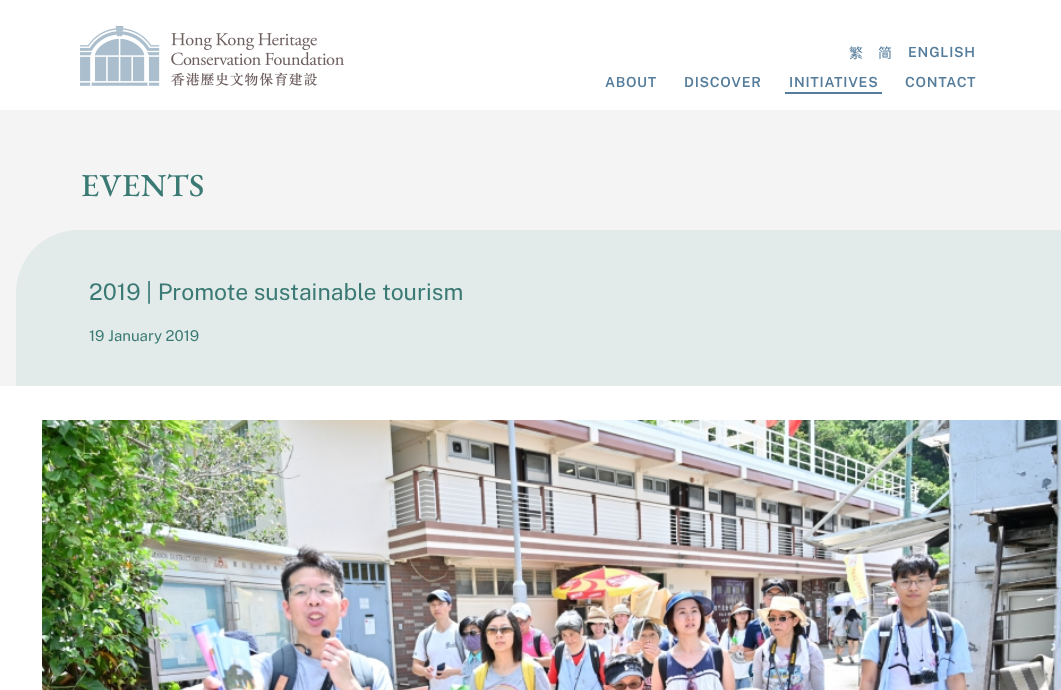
<svg xmlns="http://www.w3.org/2000/svg" width="1061" height="690">
	<rect width="100%" height="100%" fill="#FFFFFF" />
	<image x="80" y="26" width="264" height="60" href="assets/img1.png" />
	<text x="849" y="58" font-family="Noto Sans TC" font-size="14" letter-spacing="0.75" fill="#557D9B">繁</text>
	<text x="878" y="58" font-family="Noto Sans SC" font-size="14" letter-spacing="0.75" fill="#557D9B">简</text>
	<g font-family="Public Sans" font-size="14" font-weight="600" letter-spacing="0.75" fill="#557D9B">
		<text x="908" y="57">ENGLISH</text>
		<text x="605" y="87">ABOUT</text>
		<text x="684" y="87">DISCOVER</text>
	</g>
	<rect x="785" y="92" width="97" height="2" fill="#557D9B" />
	<g font-family="Public Sans" font-size="14" font-weight="600" letter-spacing="0.75" fill="#557D9B">
		<text x="789" y="87">INITIATIVES</text>
		<text x="905" y="87">CONTACT</text>
	</g>
	<rect x="0" y="110" width="1061" height="276" fill="#F4F4F4" />
	<text x="81" y="196" font-family="EB Garamond" font-size="32" font-weight="500" letter-spacing="0.5" fill="#3B7A74">EVENTS</text>
	<path d="M79 230H1061V386H16V293C16 258 44 230 79 230Z" fill="#E2EBEA" />
	<text x="89" y="300" font-family="Public Sans" font-size="23" fill="#3B7A74">2019 | Promote sustainable tourism</text>
	<text x="89" y="341" font-family="Public Sans" font-size="15" fill="#3B7A74">19 January 2019</text>
	<image x="42" y="420" width="1019" height="270" href="assets/img2.png" />
</svg>
